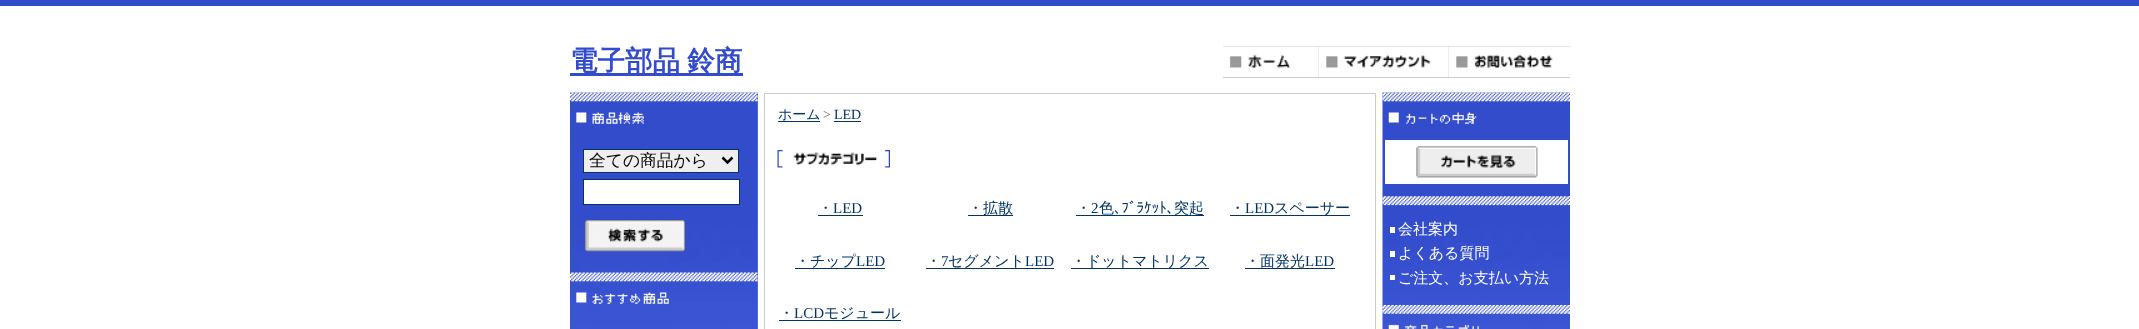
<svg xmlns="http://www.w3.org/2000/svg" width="2139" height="329">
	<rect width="100%" height="100%" fill="#FFFFFF" />
	<rect x="0" y="0" width="2139" height="6" fill="#334CCC" />
	<rect x="570" y="73" width="173" height="3" fill="#334CCC" />
	<text x="570" y="70" word-spacing="-1" font-family="WenQuanYi Zen Hei" font-size="27.5" font-weight="700" fill="#334CCC">電子部品 鈴商</text>
	<rect x="1223" y="46" width="347" height="32" fill="#999999" />
	<image x="1223" y="46" width="96" height="32" href="assets/img1.png" />
	<image x="1318" y="46" width="131" height="32" href="assets/img2.png" />
	<image x="1448" y="46" width="122" height="32" href="assets/img3.png" />
	<rect x="757" y="93" width="1" height="236" fill="#647DFC" />
	<image x="570" y="92" width="188" height="237" href="assets/img4.png" />
	<image x="570" y="92" width="188" height="32" href="assets/img5.png" />
	<rect x="583.5" y="149.5" width="155" height="23" fill="#EFEFEF" stroke="#003366" />
	<path d="M722.5 157.5L727.5 162.5L732.5 157.5" fill="none" stroke="#000000" stroke-width="2.5" />
	<text x="589" y="166" font-family="WenQuanYi Zen Hei" font-size="16.75" font-weight="500" fill="#000000">全ての商品から</text>
	<rect x="583.5" y="179.5" width="156" height="25" fill="#FFFFFF" stroke="#003366" />
	<image x="585" y="220" width="100" height="32" href="assets/img6.png" />
	<image x="570" y="272" width="188" height="32" href="assets/img7.png" />
	<rect x="764.5" y="93.5" width="611" height="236" fill="none" stroke="#CCCCCC" />
	<text x="778" y="119" font-family="WenQuanYi Zen Hei" font-size="14" font-weight="500" fill="#003366">ホーム</text>
	<rect x="778" y="121" width="42" height="1" fill="#003366" />
	<text x="823" y="119" font-family="Liberation Serif" font-size="14" fill="#695B48">&gt;</text>
	<text x="834" y="119" font-family="Liberation Serif" font-size="14" fill="#003366">LED</text>
	<rect x="834" y="121" width="27" height="1" fill="#003366" />
	<image x="777" y="150" width="113" height="18" href="assets/img8.png" />
	<text x="818" y="213" font-family="WenQuanYi Zen Hei" font-size="15" font-weight="500" fill="#003366">・</text>
	<text x="833" y="213" font-family="Liberation Serif" font-size="15" fill="#003366">LED</text>
	<rect x="818" y="215" width="45" height="1" fill="#003366" />
	<rect x="968" y="215" width="45" height="1" fill="#003366" />
	<g font-family="WenQuanYi Zen Hei" font-size="15" font-weight="500" fill="#003366">
		<text x="968" y="213">・拡散</text>
		<text x="1076" y="213">・</text>
	</g>
	<text x="1091" y="213" font-family="Liberation Serif" font-size="15" fill="#003366">2</text>
	<rect x="1076" y="215" width="128" height="1" fill="#003366" />
	<text x="1099" y="213" font-family="WenQuanYi Zen Hei" font-size="15" font-weight="500" fill="#003366">色</text>
	<text x="1114" y="213" font-family="IPAPGothic" font-size="15" fill="#003366">､ﾌﾞﾗｹｯﾄ､</text>
	<g font-family="WenQuanYi Zen Hei" font-size="15" font-weight="500" fill="#003366">
		<text x="1174" y="213">突起</text>
		<text x="1230" y="213">・</text>
	</g>
	<text x="1245" y="213" font-family="Liberation Serif" font-size="15" fill="#003366">LED</text>
	<rect x="1230" y="215" width="120" height="1" fill="#003366" />
	<g font-family="WenQuanYi Zen Hei" font-size="15" font-weight="500" fill="#003366">
		<text x="1274" y="213">スペーサー</text>
		<text x="795" y="266">・チップ</text>
	</g>
	<text x="856" y="266" font-family="Liberation Serif" font-size="15" fill="#003366">LED</text>
	<rect x="795" y="268" width="90" height="1" fill="#003366" />
	<text x="926" y="266" font-family="WenQuanYi Zen Hei" font-size="15" font-weight="500" fill="#003366">・</text>
	<text x="941" y="266" font-family="Liberation Serif" font-size="15" fill="#003366">7</text>
	<rect x="926" y="268" width="128" height="1" fill="#003366" />
	<text x="948" y="266" font-family="WenQuanYi Zen Hei" font-size="15" font-weight="500" fill="#003366">セグメント</text>
	<text x="1025" y="266" font-family="Liberation Serif" font-size="15" fill="#003366">LED</text>
	<rect x="1071" y="268" width="138" height="1" fill="#003366" />
	<g font-family="WenQuanYi Zen Hei" font-size="15" font-weight="500" fill="#003366">
		<text x="1071" y="266">・ドットマトリクス</text>
		<text x="1245" y="266">・面発光</text>
	</g>
	<text x="1305" y="266" font-family="Liberation Serif" font-size="15" fill="#003366">LED</text>
	<rect x="1245" y="268" width="90" height="1" fill="#003366" />
	<text x="779" y="318" font-family="WenQuanYi Zen Hei" font-size="15" font-weight="500" fill="#003366">・</text>
	<text x="794" y="318" font-family="Liberation Serif" font-size="15" fill="#003366">LCD</text>
	<rect x="779" y="320" width="122" height="1" fill="#003366" />
	<text x="824" y="318" font-family="WenQuanYi Zen Hei" font-size="15" font-weight="500" fill="#003366">モジュール</text>
	<image x="1382" y="92" width="188" height="237" href="assets/img9.png" />
	<image x="1382" y="92" width="188" height="32" href="assets/img10.png" />
	<rect x="1385" y="140" width="183" height="44" fill="#FFFFFF" />
	<image x="1416" y="146" width="122" height="32" href="assets/img11.png" />
	<image x="1382" y="196" width="188" height="10" href="assets/img12.png" />
	<rect x="1390" y="227" width="5" height="6" fill="#FFFFFF" />
	<text x="1398" y="234" font-family="WenQuanYi Zen Hei" font-size="15" font-weight="500" fill="#FFFFFF">会社案内</text>
	<rect x="1390" y="251" width="5" height="6" fill="#FFFFFF" />
	<text x="1398" y="258" font-family="WenQuanYi Zen Hei" font-size="15" font-weight="500" fill="#FFFFFF">よくある質問</text>
	<rect x="1390" y="275" width="5" height="5" fill="#FFFFFF" />
	<text x="1398" y="283" font-family="WenQuanYi Zen Hei" font-size="15" font-weight="500" fill="#FFFFFF">ご注文、お支払い方法</text>
	<image x="1382" y="305" width="188" height="24" href="assets/img13.png" />
</svg>
